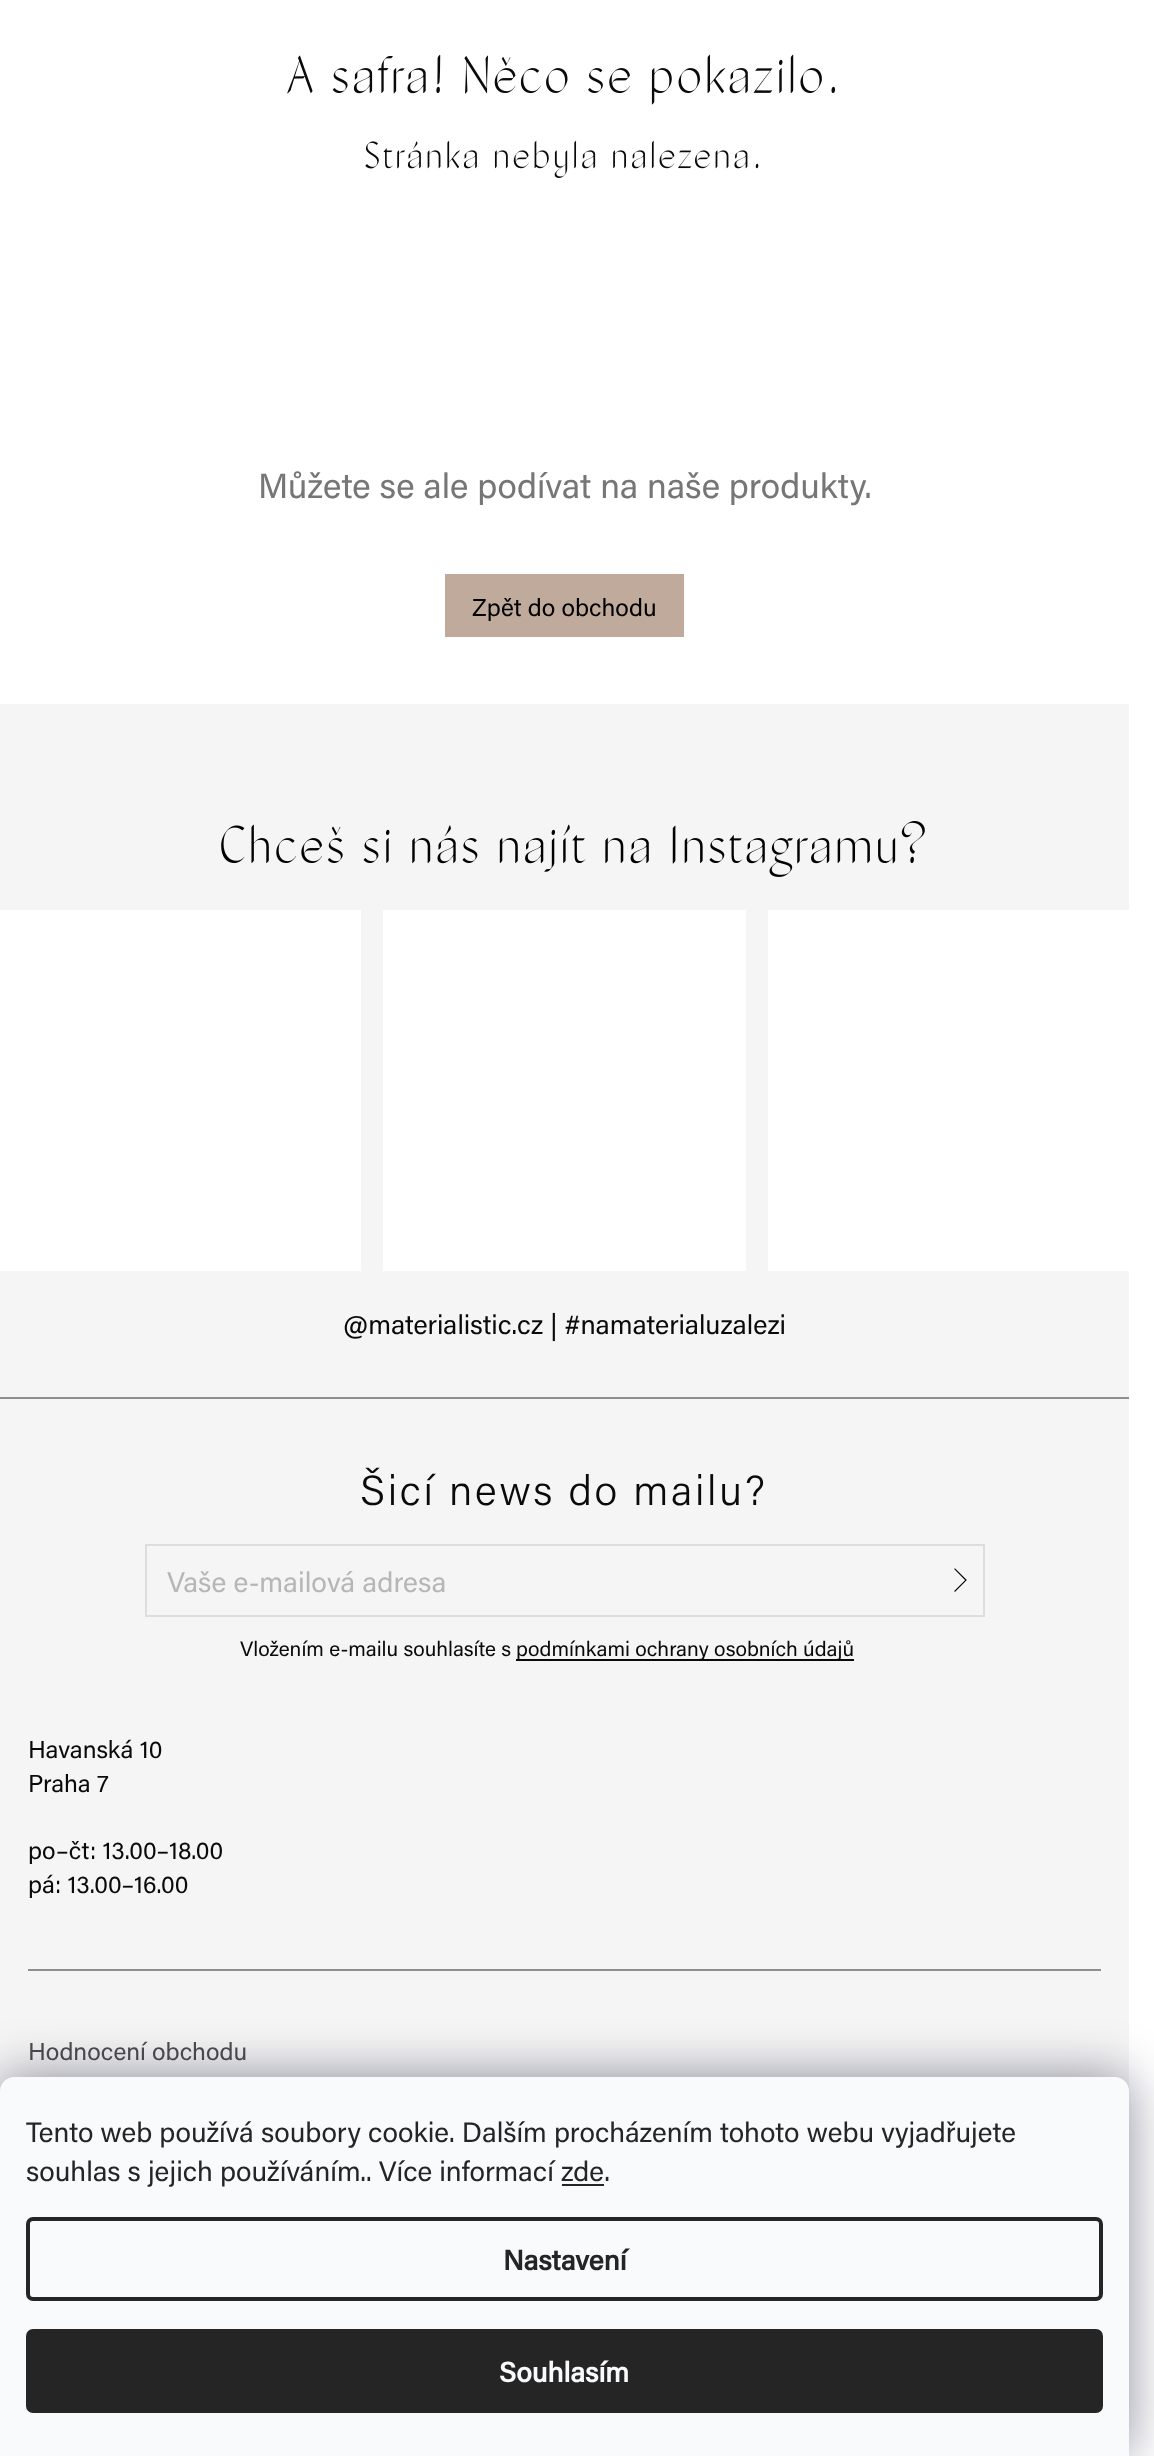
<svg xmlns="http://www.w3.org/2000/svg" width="1154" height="2456">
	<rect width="100%" height="100%" fill="#FFFFFF" />
	<image x="287" y="54" width="548" height="51" href="assets/img1.png" />
	<image x="365" y="140" width="394" height="38" href="assets/img2.png" />
	<text x="258" y="498" font-family="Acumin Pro" font-size="35" fill="#767676">Můžete se ale podívat na naše produkty.</text>
	<rect x="445" y="574" width="239" height="63" fill="#C0AA9B" />
	<text x="472" y="616" font-family="Acumin Pro" font-size="24.5" fill="#000000">Zpět do obchodu</text>
	<rect x="0" y="704" width="1129" height="1387" fill="#F5F5F5" />
	<image x="221" y="821" width="704" height="56" href="assets/img3.png" />
	<rect x="0" y="910" width="361" height="361" fill="#FFFFFF" />
	<rect x="383" y="910" width="363" height="361" fill="#FFFFFF" />
	<rect x="768" y="910" width="361" height="361" fill="#FFFFFF" />
	<rect x="0" y="1397" width="1129" height="2" fill="#8E8E8E" />
	<text x="343" y="1334" font-family="Acumin Pro" font-size="27" fill="#0A0A0A">@materialistic.cz | #namaterialuzalezi</text>
	<text x="360" y="1505" font-family="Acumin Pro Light" font-size="42" font-weight="300" letter-spacing="2.6" fill="#0A0A0A">Šicí news do mailu?</text>
	<rect x="146" y="1545" width="838" height="71" fill="none" stroke="#DDDDDD" stroke-width="2" />
	<text x="167" y="1592" font-family="Acumin Pro" font-size="28.25" fill="#B6B6B6">Vaše e-mailová adresa</text>
	<image x="954" y="1568" width="13" height="24" href="assets/img4.png" />
	<text x="240" y="1656" font-family="Acumin Pro" font-size="20.8" fill="#0A0A0A">Vložením e-mailu souhlasíte s</text>
	<rect x="516" y="1659" width="338" height="2" fill="#0A0A0A" />
	<text x="516" y="1656" font-family="Acumin Pro" font-size="20.8" fill="#0A0A0A">podmínkami ochrany osobních údajů</text>
	<g font-family="Acumin Pro" font-size="24.5" fill="#0A0A0A">
		<text x="28" y="1758">Havanská 10</text>
		<text x="28" y="1792">Praha 7</text>
		<text x="28" y="1859">po–čt: 13.00–18.00</text>
		<text x="28" y="1893">pá: 13.00–16.00</text>
	</g>
	<rect x="28" y="1969" width="1073" height="2" fill="#8E8E8E" />
	<text x="28" y="2060" font-family="Acumin Pro" font-size="24.5" fill="#4D4D4D">Hodnocení obchodu</text>
	<rect x="0" y="2077" width="1129" height="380" rx="14" fill="#1B1939" fill-opacity="0.5" filter="blur(26px)" />
	<path d="M14 2077H1115C1122.5 2077 1129 2083.5 1129 2091V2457H0V2091C0 2083.5 6.5 2077 14 2077Z" fill="#F8FAFB" />
	<g font-family="Acumin Pro" font-size="28" fill="#252525">
		<text x="26" y="2142">Tento web používá soubory cookie. Dalším procházením tohoto webu vyjadřujete</text>
		<text x="26" y="2181">souhlas s jejich používáním.. Více informací zde.</text>
	</g>
	<rect x="562" y="2184" width="42" height="2" fill="#252525" />
	<rect x="28" y="2219" width="1073" height="80" rx="5" fill="none" stroke="#252525" stroke-width="4" />
	<text x="503" y="2270" font-family="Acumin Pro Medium" font-size="28" font-weight="700" fill="#252525">Nastavení</text>
	<rect x="26" y="2329" width="1077" height="84" rx="7" fill="#252525" />
	<text x="499" y="2382" font-family="Acumin Pro Medium" font-size="28" font-weight="700" fill="#F8FAFB">Souhlasím</text>
</svg>
